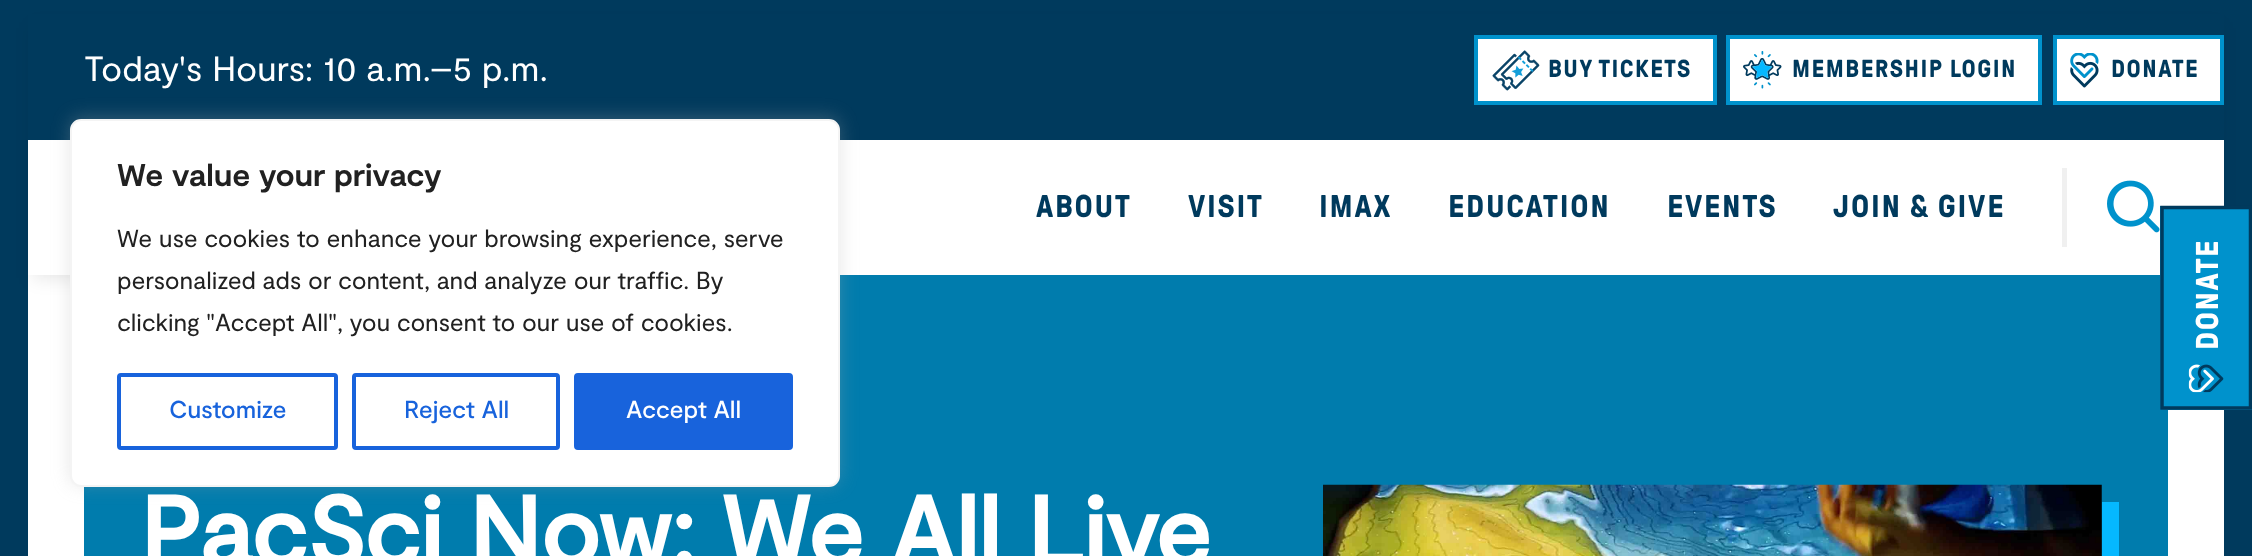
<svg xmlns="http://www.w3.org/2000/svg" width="2252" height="556">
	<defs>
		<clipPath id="clip1"><path d="M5 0H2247V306H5ZM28 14H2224V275H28Z" clip-rule="evenodd" /></clipPath>
	</defs>
	<rect width="100%" height="100%" fill="#FFFFFF" />
	<rect x="28" y="0" width="2196" height="14" fill="#003A5D" />
	<rect x="2224" y="0" width="28" height="556" fill="#003A5D" />
	<rect x="0" y="0" width="28" height="556" fill="#003A5D" />
	<g clip-path="url(#clip1)">
		<rect x="33" y="28" width="2186" height="250" fill="#000000" fill-opacity="0.1" filter="blur(9px)" />
	</g>
	<rect x="28" y="14" width="2196" height="126" fill="#003A5D" />
	<text x="84" y="81" font-family="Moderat" font-size="35" fill="#FFFFFF">Today's Hours: 10 a.m.–5 p.m.</text>
	<rect x="1478" y="39" width="235" height="62" fill="#FFFFFF" />
	<image x="1492" y="50" width="48" height="41" href="assets/img1.png" />
	<rect x="1476" y="37" width="239" height="66" fill="none" stroke="#0092CC" stroke-width="4" />
	<text x="1548" y="77" font-family="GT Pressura" font-size="24.5" font-weight="700" letter-spacing="1.5" fill="#003A5D">BUY TICKETS</text>
	<rect x="1730" y="39" width="308" height="62" fill="#FFFFFF" />
	<image x="1743" y="51" width="39" height="38" href="assets/img2.png" />
	<rect x="1728" y="37" width="312" height="66" fill="none" stroke="#0092CC" stroke-width="4" />
	<text x="1792" y="77" font-family="GT Pressura" font-size="24.5" font-weight="700" letter-spacing="1.5" fill="#003A5D">MEMBERSHIP LOGIN</text>
	<rect x="2057" y="39" width="163" height="62" fill="#FFFFFF" />
	<image x="2070" y="53" width="29" height="35" href="assets/img3.png" />
	<rect x="2055" y="37" width="167" height="66" fill="none" stroke="#0092CC" stroke-width="4" />
	<text x="2111" y="77" font-family="GT Pressura" font-size="24.5" font-weight="700" letter-spacing="1.5" fill="#003A5D">DONATE</text>
	<g font-family="GT Pressura" font-size="31.5" font-weight="700" letter-spacing="1.75" fill="#003A5D">
		<text x="1036" y="217">ABOUT</text>
		<text x="1188" y="217">VISIT</text>
		<text x="1319" y="217">IMAX</text>
		<text x="1448" y="217">EDUCATION</text>
		<text x="1667" y="217">EVENTS</text>
		<text x="1833" y="217">JOIN &amp; GIVE</text>
	</g>
	<rect x="2062" y="168" width="5" height="79" fill="#F0F0F0" />
	<image x="2107" y="180" width="53" height="53" href="assets/img4.png" />
	<rect x="84" y="275" width="2084" height="281" fill="#007CAD" />
	<rect x="2160" y="206" width="92" height="204" fill="#0092CC" />
	<image x="2188" y="364" width="36" height="29" href="assets/img5.png" />
	<path d="M2162 408V207.5H2250.5V408Z" fill="none" stroke="#003A5D" stroke-width="3.5" />
	<text x="2218" y="350" transform="rotate(-90 2218 350)" font-family="GT Pressura" font-size="31.5" font-weight="700" letter-spacing="1.5" fill="#FFFFFF">DONATE</text>
	<text x="140" y="566" font-family="Moderat" font-size="98" font-weight="700" fill="#FFFFFF">PacSci Now: We All Live</text>
	<image x="1323" y="484" width="779" height="72" href="assets/img6.png" />
	<path d="M1341 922V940H2119V502H2102V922Z" fill="#05B8FF" />
	<rect x="70" y="117" width="770" height="368" rx="11" fill="#ACABAB" fill-opacity="0.3" filter="blur(9px)" />
	<rect x="71" y="120" width="768" height="366" rx="10" fill="#FFFFFF" stroke="#F4F4F4" stroke-width="2" />
	<text x="117" y="186" font-family="'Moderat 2'" font-size="31.5" font-weight="700" fill="#212121">We value your privacy</text>
	<g font-family="Moderat" font-size="24.5" fill="#212121">
		<text x="117" y="247">We use cookies to enhance your browsing experience, serve</text>
		<text x="117" y="289">personalized ads or content, and analyze our traffic. By</text>
		<text x="117" y="331">clicking "Accept All", you consent to our use of cookies.</text>
	</g>
	<rect x="119" y="375" width="217" height="73" rx="2" fill="none" stroke="#1863DC" stroke-width="4" />
	<text x="169" y="418" font-family="Moderat" font-size="24.5" font-weight="500" fill="#1863DC">Customize</text>
	<rect x="354" y="375" width="204" height="73" rx="2" fill="none" stroke="#1863DC" stroke-width="4" />
	<text x="404" y="418" font-family="Moderat" font-size="24.5" font-weight="500" fill="#1863DC">Reject All</text>
	<rect x="576" y="375" width="215" height="73" rx="2" fill="#1863DC" stroke="#1863DC" stroke-width="4" />
	<text x="626" y="418" font-family="Moderat" font-size="24.5" font-weight="500" fill="#FFFFFF">Accept All</text>
</svg>
